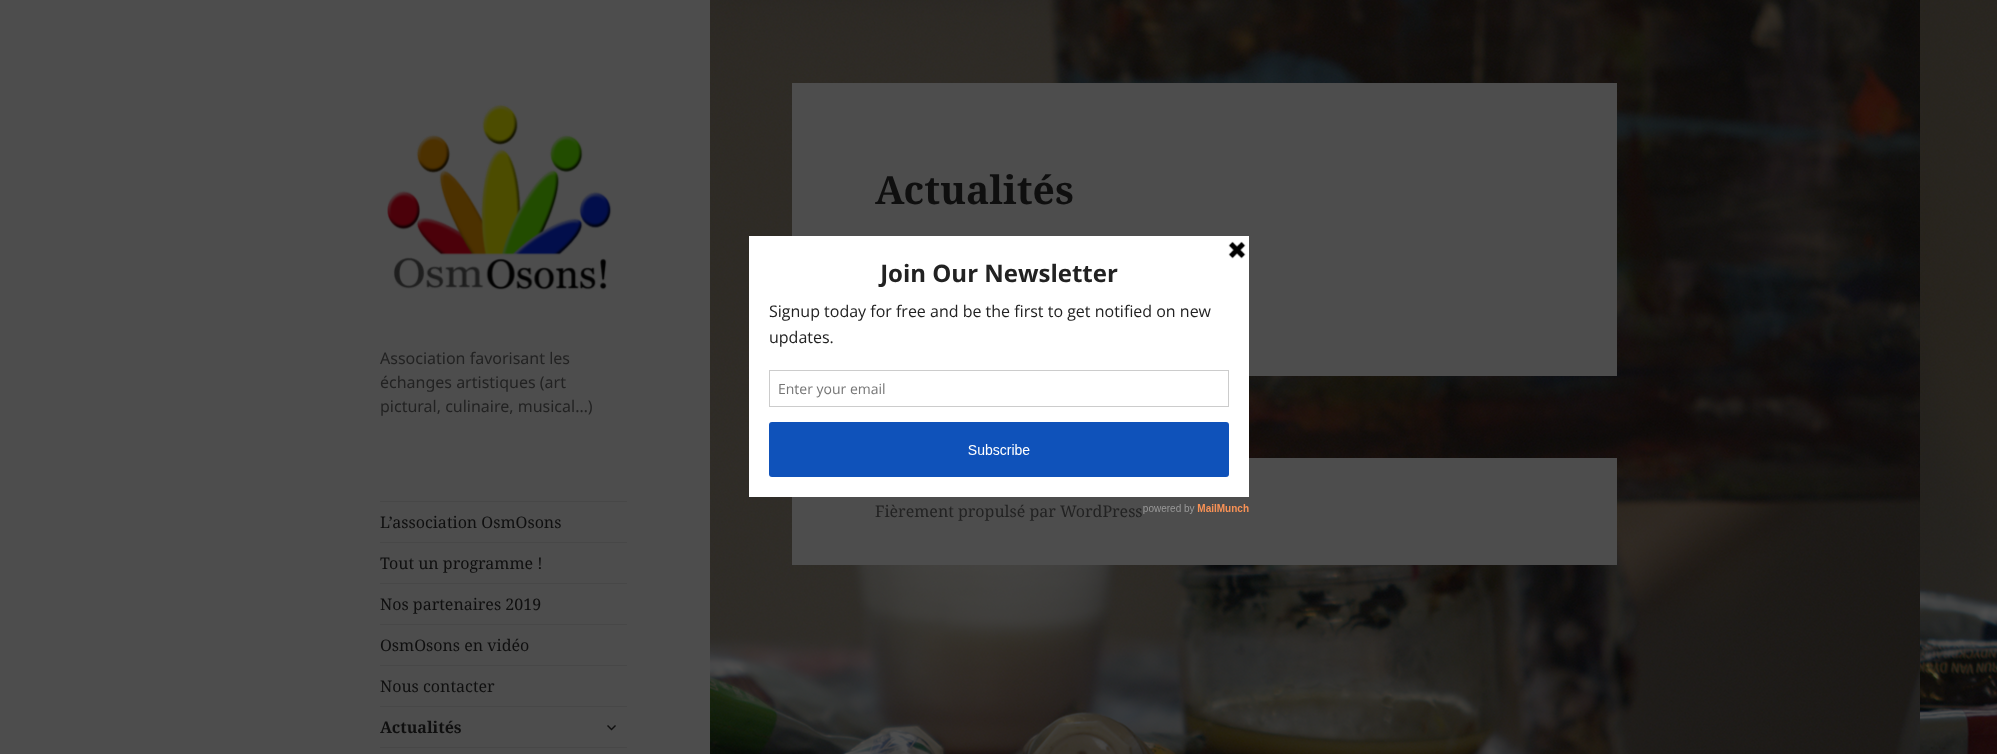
<svg xmlns="http://www.w3.org/2000/svg" width="1997" height="754">
	<rect width="100%" height="100%" fill="#FFFFFF" />
	<image x="710" y="0" width="1287" height="754" href="assets/img1.png" />
	<rect x="0" y="0" width="710" height="754" fill="#4D4D4D" />
	<rect x="792" y="83" width="825" height="293" fill="#4D4D4D" />
	<text x="875" y="204" font-family="Noto Serif" font-size="39" font-weight="700" fill="#0F0F0F">Actualités</text>
	<image x="387" y="104" width="225" height="186" href="assets/img2.png" />
	<g font-family="Noto Sans" font-size="16" fill="#222222">
		<text x="380" y="364">Association favorisant les</text>
		<text x="380" y="388">échanges artistiques (art</text>
		<text x="380" y="412">pictural, culinaire, musical…)</text>
	</g>
	<rect x="380" y="501" width="247" height="1" fill="#474747" />
	<text x="380" y="528" font-family="Noto Serif" font-size="16" fill="#0F0F0F">L’association OsmOsons</text>
	<rect x="380" y="542" width="247" height="1" fill="#474747" />
	<text x="380" y="569" font-family="Noto Serif" font-size="16" fill="#0F0F0F">Tout un programme !</text>
	<rect x="380" y="583" width="247" height="1" fill="#474747" />
	<text x="380" y="610" font-family="Noto Serif" font-size="16" fill="#0F0F0F">Nos partenaires 2019</text>
	<rect x="380" y="624" width="247" height="1" fill="#474747" />
	<text x="380" y="651" font-family="Noto Serif" font-size="16" fill="#0F0F0F">OsmOsons en vidéo</text>
	<rect x="380" y="665" width="247" height="1" fill="#474747" />
	<text x="380" y="692" font-family="Noto Serif" font-size="16" fill="#0F0F0F">Nous contacter</text>
	<rect x="380" y="706" width="247" height="1" fill="#474747" />
	<text x="380" y="733" font-family="Noto Serif" font-size="16" font-weight="700" fill="#0F0F0F">Actualités</text>
	<image x="607" y="725" width="9" height="6" href="assets/img3.png" />
	<rect x="380" y="747" width="247" height="1" fill="#474747" />
	<rect x="792" y="458" width="825" height="107" fill="#4D4D4D" />
	<text x="875" y="517" font-family="Noto Serif" font-size="16" fill="#222222">Fièrement propulsé par WordPress</text>
	<image x="749" y="236" width="500" height="278" href="assets/img4.png" />
</svg>
